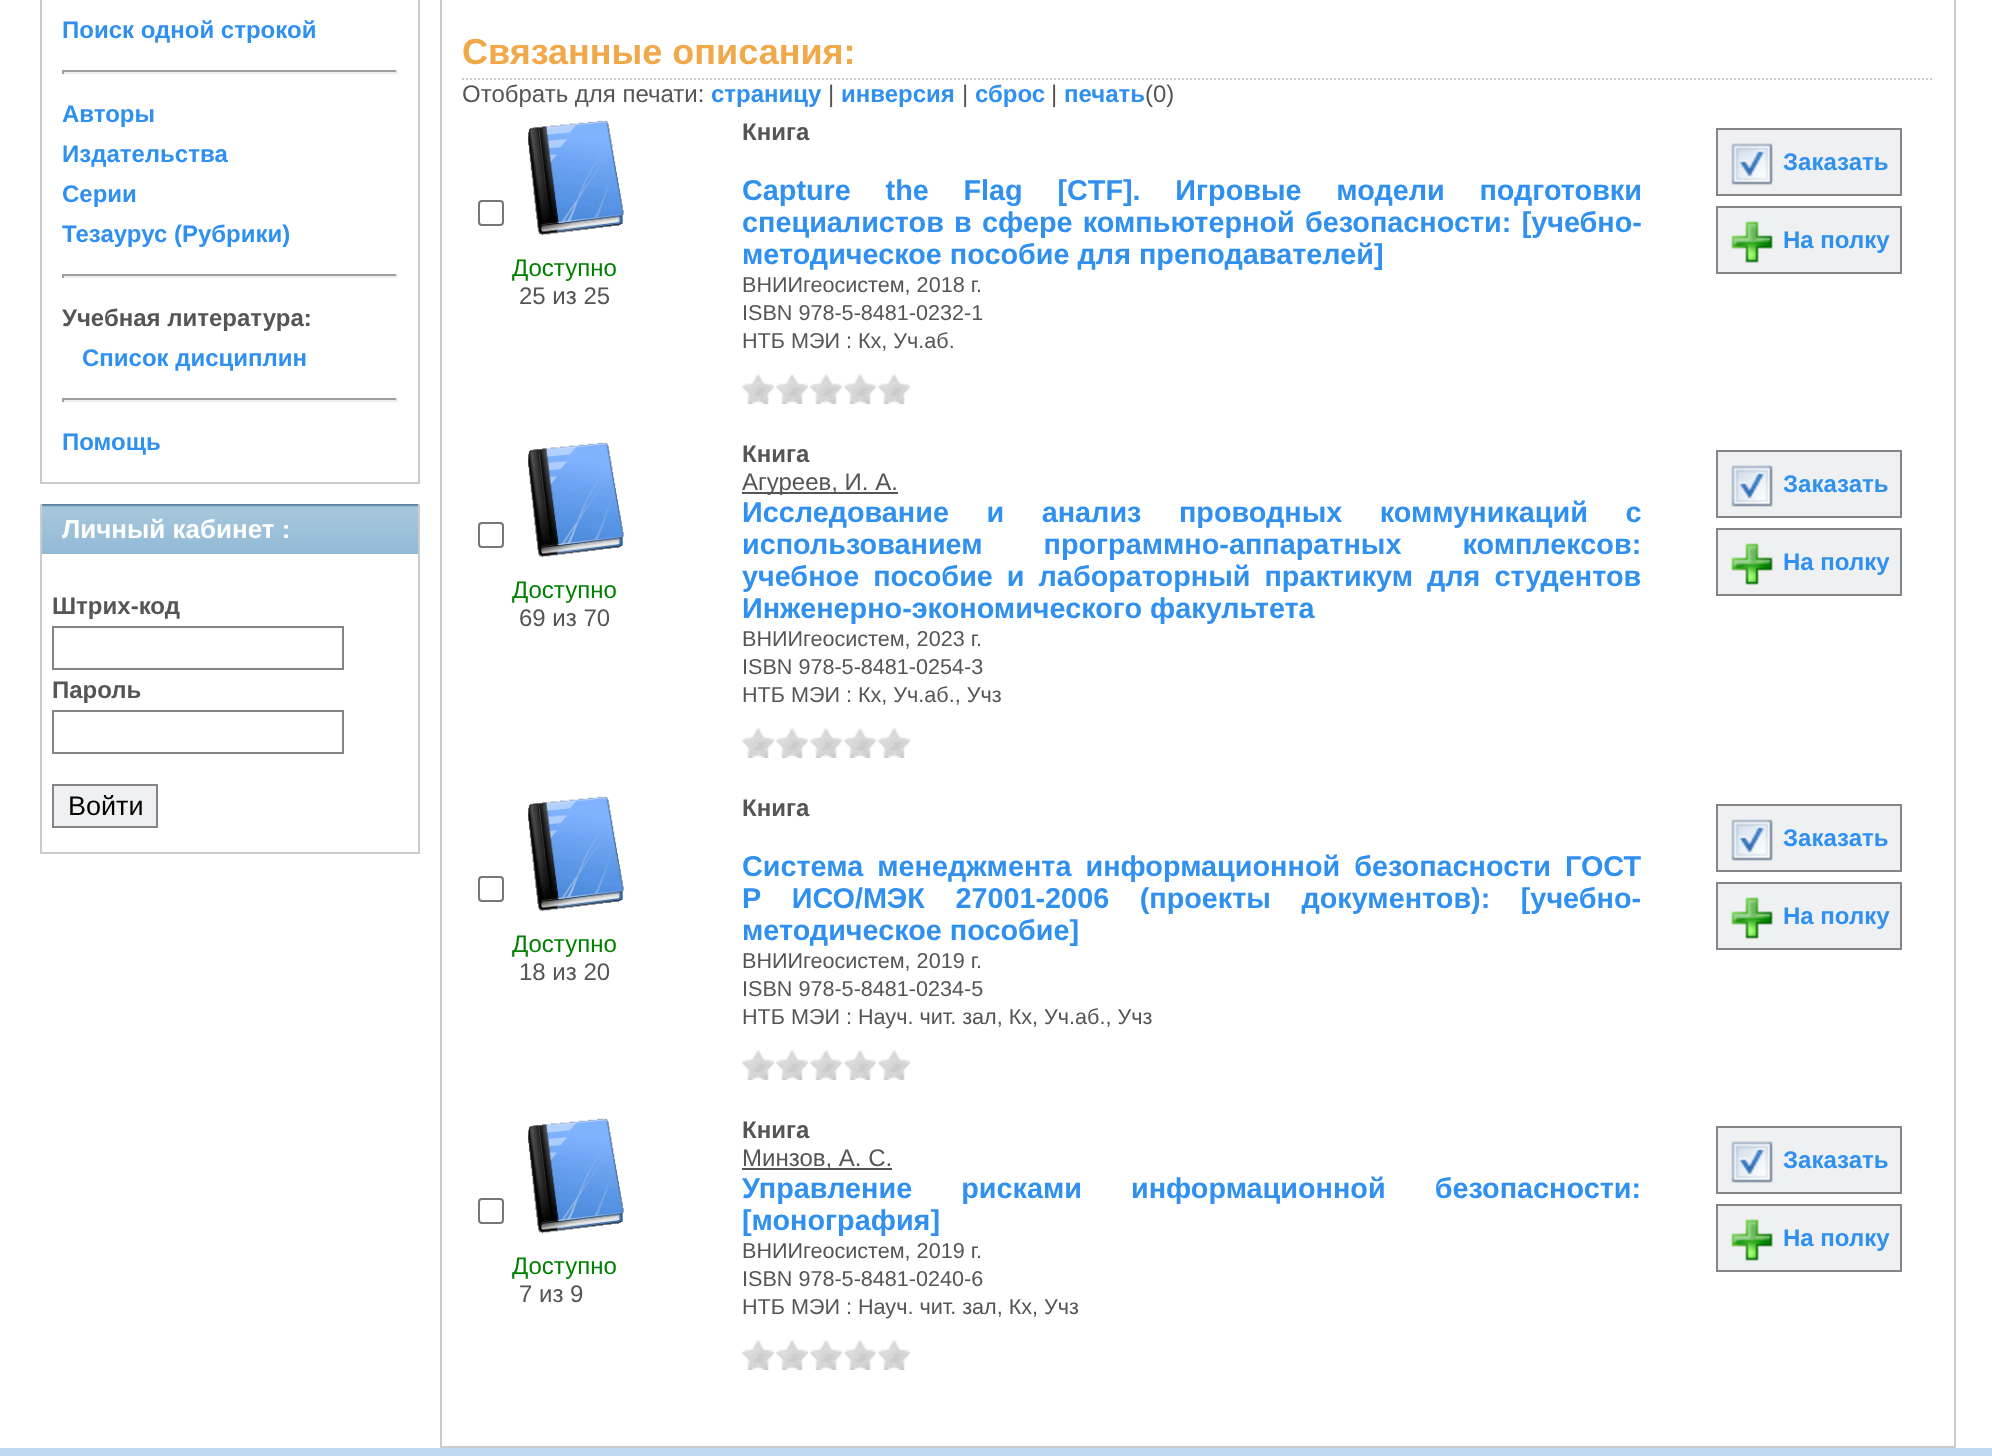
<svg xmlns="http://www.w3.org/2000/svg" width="1992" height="1456">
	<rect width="100%" height="100%" fill="#FFFFFF" />
	<rect x="418" y="0" width="2" height="484" fill="#CCCCCC" />
	<rect x="40" y="482" width="380" height="2" fill="#CCCCCC" />
	<rect x="40" y="0" width="2" height="484" fill="#CCCCCC" />
	<text x="62" y="38" font-family="Liberation Sans" font-size="24" font-weight="700" fill="#3090F0">Поиск одной строкой</text>
	<rect x="62" y="70" width="336" height="2" fill="#9F9F9F" />
	<rect x="396" y="70" width="2" height="4" fill="#EEEEEE" />
	<rect x="62" y="72" width="336" height="2" fill="#EEEEEE" />
	<rect x="62" y="70" width="2" height="4" fill="#9F9F9F" />
	<g font-family="Liberation Sans" font-size="24" font-weight="700" fill="#3090F0">
		<text x="62" y="122">Авторы</text>
		<text x="62" y="162">Издательства</text>
		<text x="62" y="202">Серии</text>
		<text x="62" y="242">Тезаурус (Рубрики)</text>
	</g>
	<rect x="62" y="274" width="336" height="2" fill="#9F9F9F" />
	<rect x="396" y="274" width="2" height="4" fill="#EEEEEE" />
	<rect x="62" y="276" width="336" height="2" fill="#EEEEEE" />
	<rect x="62" y="274" width="2" height="4" fill="#9F9F9F" />
	<text x="62" y="326" font-family="Liberation Sans" font-size="24" font-weight="700" fill="#555555">Учебная литература:</text>
	<text x="82" y="366" font-family="Liberation Sans" font-size="24" font-weight="700" fill="#3090F0">Список дисциплин</text>
	<rect x="62" y="398" width="336" height="2" fill="#9F9F9F" />
	<rect x="396" y="398" width="2" height="4" fill="#EEEEEE" />
	<rect x="62" y="400" width="336" height="2" fill="#EEEEEE" />
	<rect x="62" y="398" width="2" height="4" fill="#9F9F9F" />
	<text x="62" y="450" font-family="Liberation Sans" font-size="24" font-weight="700" fill="#3090F0">Помощь</text>
	<image x="42" y="504" width="376" height="50" href="assets/img1.png" />
	<rect x="418" y="504" width="2" height="350" fill="#CCCCCC" />
	<rect x="40" y="504" width="2" height="50" fill="#CCCCCC" />
	<text x="62" y="538" font-family="Liberation Sans" font-size="26" font-weight="700" fill="#FFFFFF">Личный кабинет :</text>
	<rect x="40" y="852" width="380" height="2" fill="#CCCCCC" />
	<rect x="40" y="554" width="2" height="300" fill="#CCCCCC" />
	<text x="52" y="614" font-family="Liberation Sans" font-size="24" font-weight="700" fill="#555555">Штрих-код</text>
	<rect x="53" y="627" width="290" height="42" fill="none" stroke="#848388" stroke-width="2" />
	<text x="52" y="698" font-family="Liberation Sans" font-size="24" font-weight="700" fill="#555555">Пароль</text>
	<rect x="53" y="711" width="290" height="42" fill="none" stroke="#848388" stroke-width="2" />
	<rect x="53" y="785" width="104" height="42" fill="#EEF0F1" stroke="#848388" stroke-width="2" />
	<text x="68" y="815" font-family="Liberation Sans" font-size="27" fill="#000000">Войти</text>
	<rect x="1954" y="0" width="2" height="1448" fill="#CCCCCC" />
	<rect x="440" y="1446" width="1516" height="2" fill="#CCCCCC" />
	<rect x="440" y="0" width="2" height="1448" fill="#CCCCCC" />
	<path d="M462 79H1934" fill="none" stroke="#CCCCCC" stroke-width="2" stroke-dasharray="2 2" />
	<text x="462" y="64" font-family="Liberation Sans" font-size="36" font-weight="700" fill="#F0A848">Связанные описания:</text>
	<text x="462" y="102" font-family="Liberation Sans" font-size="24" fill="#555555">Отобрать для печати:</text>
	<text x="711" y="102" font-family="Liberation Sans" font-size="24" font-weight="700" fill="#3090F0">страницу</text>
	<text x="828" y="102" font-family="Liberation Sans" font-size="24" fill="#555555">|</text>
	<text x="841" y="102" font-family="Liberation Sans" font-size="24" font-weight="700" fill="#3090F0">инверсия</text>
	<text x="962" y="102" font-family="Liberation Sans" font-size="24" fill="#555555">|</text>
	<text x="975" y="102" font-family="Liberation Sans" font-size="24" font-weight="700" fill="#3090F0">сброс</text>
	<text x="1051" y="102" font-family="Liberation Sans" font-size="24" fill="#555555">|</text>
	<text x="1064" y="102" font-family="Liberation Sans" font-size="24" font-weight="700" fill="#3090F0">печать</text>
	<text x="1145" y="102" font-family="Liberation Sans" font-size="24" fill="#555555">(0)</text>
	<text x="742" y="140" font-family="Liberation Sans" font-size="24" font-weight="700" fill="#555555">Книга</text>
	<g font-family="Liberation Sans" font-size="28.8" font-weight="700" fill="#3090F0">
		<text x="742" y="200" word-spacing="26.75">Capture the Flag [CTF]. Игровые модели подготовки</text>
		<text x="742" y="232" word-spacing="2.25">специалистов в сфере компьютерной безопасности: [учебно-</text>
		<text x="742" y="264">методическое пособие для преподавателей]</text>
	</g>
	<g font-family="Liberation Sans" font-size="21.6" fill="#555555">
		<text x="742" y="292">ВНИИгеосистем, 2018 г.</text>
		<text x="742" y="320">ISBN 978-5-8481-0232-1</text>
		<text x="742" y="348">НТБ МЭИ : Кх, Уч.аб.</text>
	</g>
	<image x="742" y="374" width="32" height="30" href="assets/img2.png" />
	<image x="776" y="374" width="32" height="30" href="assets/img2.png" />
	<image x="810" y="374" width="32" height="30" href="assets/img2.png" />
	<image x="844" y="374" width="32" height="30" href="assets/img2.png" />
	<image x="878" y="374" width="32" height="30" href="assets/img2.png" />
	<rect x="1717" y="129" width="184" height="66" fill="#EEF0F1" stroke="#848388" stroke-width="2" />
	<image x="1731" y="143" width="42" height="42" href="assets/img3.png" />
	<text x="1783" y="170" font-family="Liberation Sans" font-size="24" font-weight="700" fill="#3090F0">Заказать</text>
	<rect x="1717" y="207" width="184" height="66" fill="#EEF0F1" stroke="#848388" stroke-width="2" />
	<image x="1731" y="221" width="42" height="42" href="assets/img4.png" />
	<text x="1783" y="248" font-family="Liberation Sans" font-size="24" font-weight="700" fill="#3090F0">На полку</text>
	<rect x="479" y="201" width="24" height="24" rx="3" fill="none" stroke="#767676" stroke-width="2" />
	<image x="528" y="120" width="96" height="116" href="assets/img5.png" />
	<text x="512" y="276" font-family="Liberation Sans" font-size="24" fill="#008000">Доступно</text>
	<text x="519" y="304" font-family="Liberation Sans" font-size="24" fill="#555555">25 из 25</text>
	<text x="742" y="462" font-family="Liberation Sans" font-size="24" font-weight="700" fill="#555555">Книга</text>
	<rect x="742" y="492" width="156" height="2" fill="#555555" />
	<text x="742" y="490" font-family="Liberation Sans" font-size="24" fill="#555555">Агуреев, И. А.</text>
	<g font-family="Liberation Sans" font-size="28.8" font-weight="700" fill="#3090F0">
		<text x="742" y="522" word-spacing="29.5">Исследование и анализ проводных коммуникаций с</text>
		<text x="742" y="554" word-spacing="53">использованием программно-аппаратных комплексов:</text>
		<text x="742" y="586" word-spacing="6">учебное пособие и лабораторный практикум для студентов</text>
		<text x="742" y="618">Инженерно-экономического факультета</text>
	</g>
	<g font-family="Liberation Sans" font-size="21.6" fill="#555555">
		<text x="742" y="646">ВНИИгеосистем, 2023 г.</text>
		<text x="742" y="674">ISBN 978-5-8481-0254-3</text>
		<text x="742" y="702">НТБ МЭИ : Кх, Уч.аб., Учз</text>
	</g>
	<image x="742" y="728" width="32" height="30" href="assets/img2.png" />
	<image x="776" y="728" width="32" height="30" href="assets/img2.png" />
	<image x="810" y="728" width="32" height="30" href="assets/img2.png" />
	<image x="844" y="728" width="32" height="30" href="assets/img2.png" />
	<image x="878" y="728" width="32" height="30" href="assets/img2.png" />
	<rect x="1717" y="451" width="184" height="66" fill="#EEF0F1" stroke="#848388" stroke-width="2" />
	<image x="1731" y="465" width="42" height="42" href="assets/img3.png" />
	<text x="1783" y="492" font-family="Liberation Sans" font-size="24" font-weight="700" fill="#3090F0">Заказать</text>
	<rect x="1717" y="529" width="184" height="66" fill="#EEF0F1" stroke="#848388" stroke-width="2" />
	<image x="1731" y="543" width="42" height="42" href="assets/img4.png" />
	<text x="1783" y="570" font-family="Liberation Sans" font-size="24" font-weight="700" fill="#3090F0">На полку</text>
	<rect x="479" y="523" width="24" height="24" rx="3" fill="none" stroke="#767676" stroke-width="2" />
	<image x="528" y="442" width="96" height="116" href="assets/img5.png" />
	<text x="512" y="598" font-family="Liberation Sans" font-size="24" fill="#008000">Доступно</text>
	<text x="519" y="626" font-family="Liberation Sans" font-size="24" fill="#555555">69 из 70</text>
	<text x="742" y="816" font-family="Liberation Sans" font-size="24" font-weight="700" fill="#555555">Книга</text>
	<g font-family="Liberation Sans" font-size="28.8" font-weight="700" fill="#3090F0">
		<text x="742" y="876" word-spacing="6">Система менеджмента информационной безопасности ГОСТ</text>
		<text x="742" y="908" word-spacing="22.5">Р ИСО/МЭК 27001-2006 (проекты документов): [учебно-</text>
		<text x="742" y="940">методическое пособие]</text>
	</g>
	<g font-family="Liberation Sans" font-size="21.6" fill="#555555">
		<text x="742" y="968">ВНИИгеосистем, 2019 г.</text>
		<text x="742" y="996">ISBN 978-5-8481-0234-5</text>
		<text x="742" y="1024">НТБ МЭИ : Науч. чит. зал, Кх, Уч.аб., Учз</text>
	</g>
	<image x="742" y="1050" width="32" height="30" href="assets/img2.png" />
	<image x="776" y="1050" width="32" height="30" href="assets/img2.png" />
	<image x="810" y="1050" width="32" height="30" href="assets/img2.png" />
	<image x="844" y="1050" width="32" height="30" href="assets/img2.png" />
	<image x="878" y="1050" width="32" height="30" href="assets/img2.png" />
	<rect x="1717" y="805" width="184" height="66" fill="#EEF0F1" stroke="#848388" stroke-width="2" />
	<image x="1731" y="819" width="42" height="42" href="assets/img3.png" />
	<text x="1783" y="846" font-family="Liberation Sans" font-size="24" font-weight="700" fill="#3090F0">Заказать</text>
	<rect x="1717" y="883" width="184" height="66" fill="#EEF0F1" stroke="#848388" stroke-width="2" />
	<image x="1731" y="897" width="42" height="42" href="assets/img4.png" />
	<text x="1783" y="924" font-family="Liberation Sans" font-size="24" font-weight="700" fill="#3090F0">На полку</text>
	<rect x="479" y="877" width="24" height="24" rx="3" fill="none" stroke="#767676" stroke-width="2" />
	<image x="528" y="796" width="96" height="116" href="assets/img5.png" />
	<text x="512" y="952" font-family="Liberation Sans" font-size="24" fill="#008000">Доступно</text>
	<text x="519" y="980" font-family="Liberation Sans" font-size="24" fill="#555555">18 из 20</text>
	<text x="742" y="1138" font-family="Liberation Sans" font-size="24" font-weight="700" fill="#555555">Книга</text>
	<rect x="742" y="1168" width="150" height="2" fill="#555555" />
	<text x="742" y="1166" font-family="Liberation Sans" font-size="24" fill="#555555">Минзов, А. С.</text>
	<g font-family="Liberation Sans" font-size="28.8" font-weight="700" fill="#3090F0">
		<text x="742" y="1198" word-spacing="41">Управление рисками информационной безопасности:</text>
		<text x="742" y="1230">[монография]</text>
	</g>
	<g font-family="Liberation Sans" font-size="21.6" fill="#555555">
		<text x="742" y="1258">ВНИИгеосистем, 2019 г.</text>
		<text x="742" y="1286">ISBN 978-5-8481-0240-6</text>
		<text x="742" y="1314">НТБ МЭИ : Науч. чит. зал, Кх, Учз</text>
	</g>
	<image x="742" y="1340" width="32" height="30" href="assets/img2.png" />
	<image x="776" y="1340" width="32" height="30" href="assets/img2.png" />
	<image x="810" y="1340" width="32" height="30" href="assets/img2.png" />
	<image x="844" y="1340" width="32" height="30" href="assets/img2.png" />
	<image x="878" y="1340" width="32" height="30" href="assets/img2.png" />
	<rect x="1717" y="1127" width="184" height="66" fill="#EEF0F1" stroke="#848388" stroke-width="2" />
	<image x="1731" y="1141" width="42" height="42" href="assets/img3.png" />
	<text x="1783" y="1168" font-family="Liberation Sans" font-size="24" font-weight="700" fill="#3090F0">Заказать</text>
	<rect x="1717" y="1205" width="184" height="66" fill="#EEF0F1" stroke="#848388" stroke-width="2" />
	<image x="1731" y="1219" width="42" height="42" href="assets/img4.png" />
	<text x="1783" y="1246" font-family="Liberation Sans" font-size="24" font-weight="700" fill="#3090F0">На полку</text>
	<rect x="479" y="1199" width="24" height="24" rx="3" fill="none" stroke="#767676" stroke-width="2" />
	<image x="528" y="1118" width="96" height="116" href="assets/img5.png" />
	<text x="512" y="1274" font-family="Liberation Sans" font-size="24" fill="#008000">Доступно</text>
	<text x="519" y="1302" font-family="Liberation Sans" font-size="24" fill="#555555">7 из 9</text>
	<rect x="0" y="1448" width="1992" height="8" fill="#C0D8F0" />
</svg>
